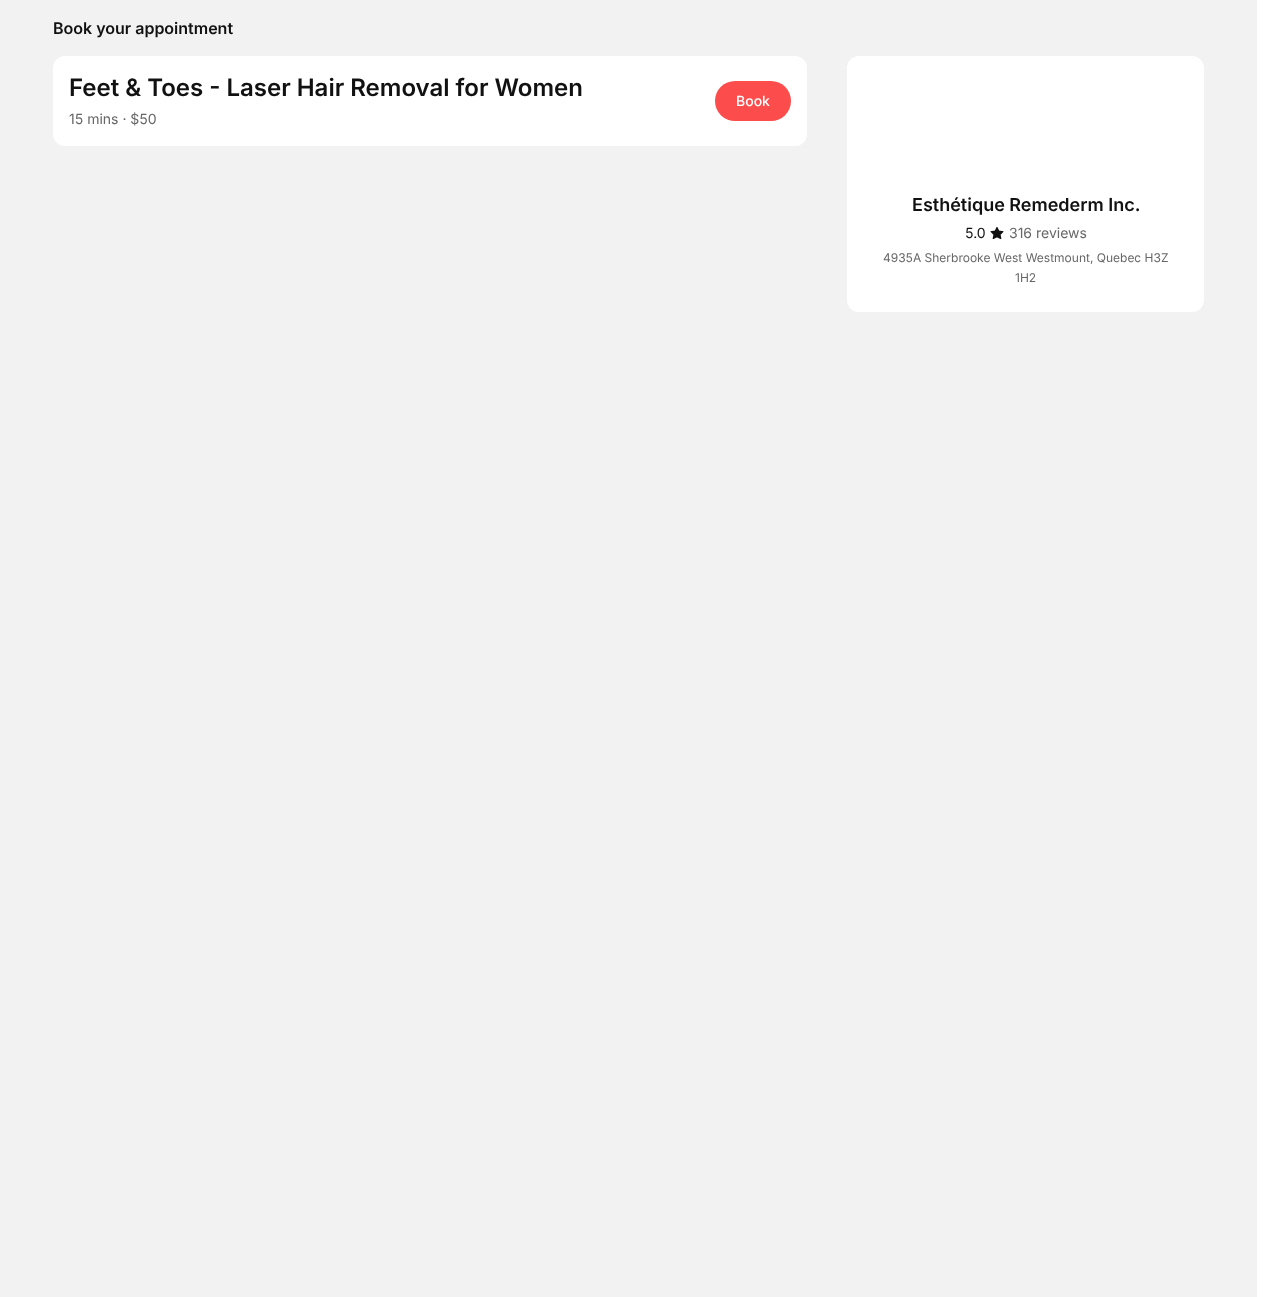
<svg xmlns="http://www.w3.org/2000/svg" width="1272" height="1297">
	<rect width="100%" height="100%" fill="#FFFFFF" />
	<rect x="0" y="0" width="1257" height="1297" fill="#F2F2F2" />
	<text x="53" y="34" font-family="Inter" font-size="16" font-weight="600" fill="#111111">Book your appointment</text>
	<rect x="53" y="56" width="754" height="90" rx="12" fill="#FFFFFF" />
	<text x="69" y="96" font-family="Inter" font-size="24" font-weight="600" fill="#111111">Feet &amp; Toes - Laser Hair Removal for Women</text>
	<text x="69" y="124" font-family="Inter" font-size="14" fill="#676767">15 mins · $50</text>
	<rect x="715" y="81" width="76" height="40" rx="20" fill="#FC4C4C" />
	<text x="736" y="106" font-family="Inter" font-size="14" font-weight="500" fill="#FFFFFF">Book</text>
	<rect x="847" y="56" width="357" height="256" rx="12" fill="#FFFFFF" />
	<text x="912" y="211" font-family="Inter" font-size="18" font-weight="600" fill="#111111">Esthétique Remederm Inc.</text>
	<text x="965" y="238" font-family="Inter" font-size="14" fill="#111111">5.0</text>
	<image x="990" y="226" width="14" height="14" href="assets/img1.png" />
	<text x="1009" y="238" font-family="Inter" font-size="14" fill="#676767">316 reviews</text>
	<g font-family="Inter" font-size="12" fill="#676767">
		<text x="883" y="262">4935A Sherbrooke West Westmount, Quebec H3Z</text>
		<text x="1015" y="282">1H2</text>
	</g>
</svg>
